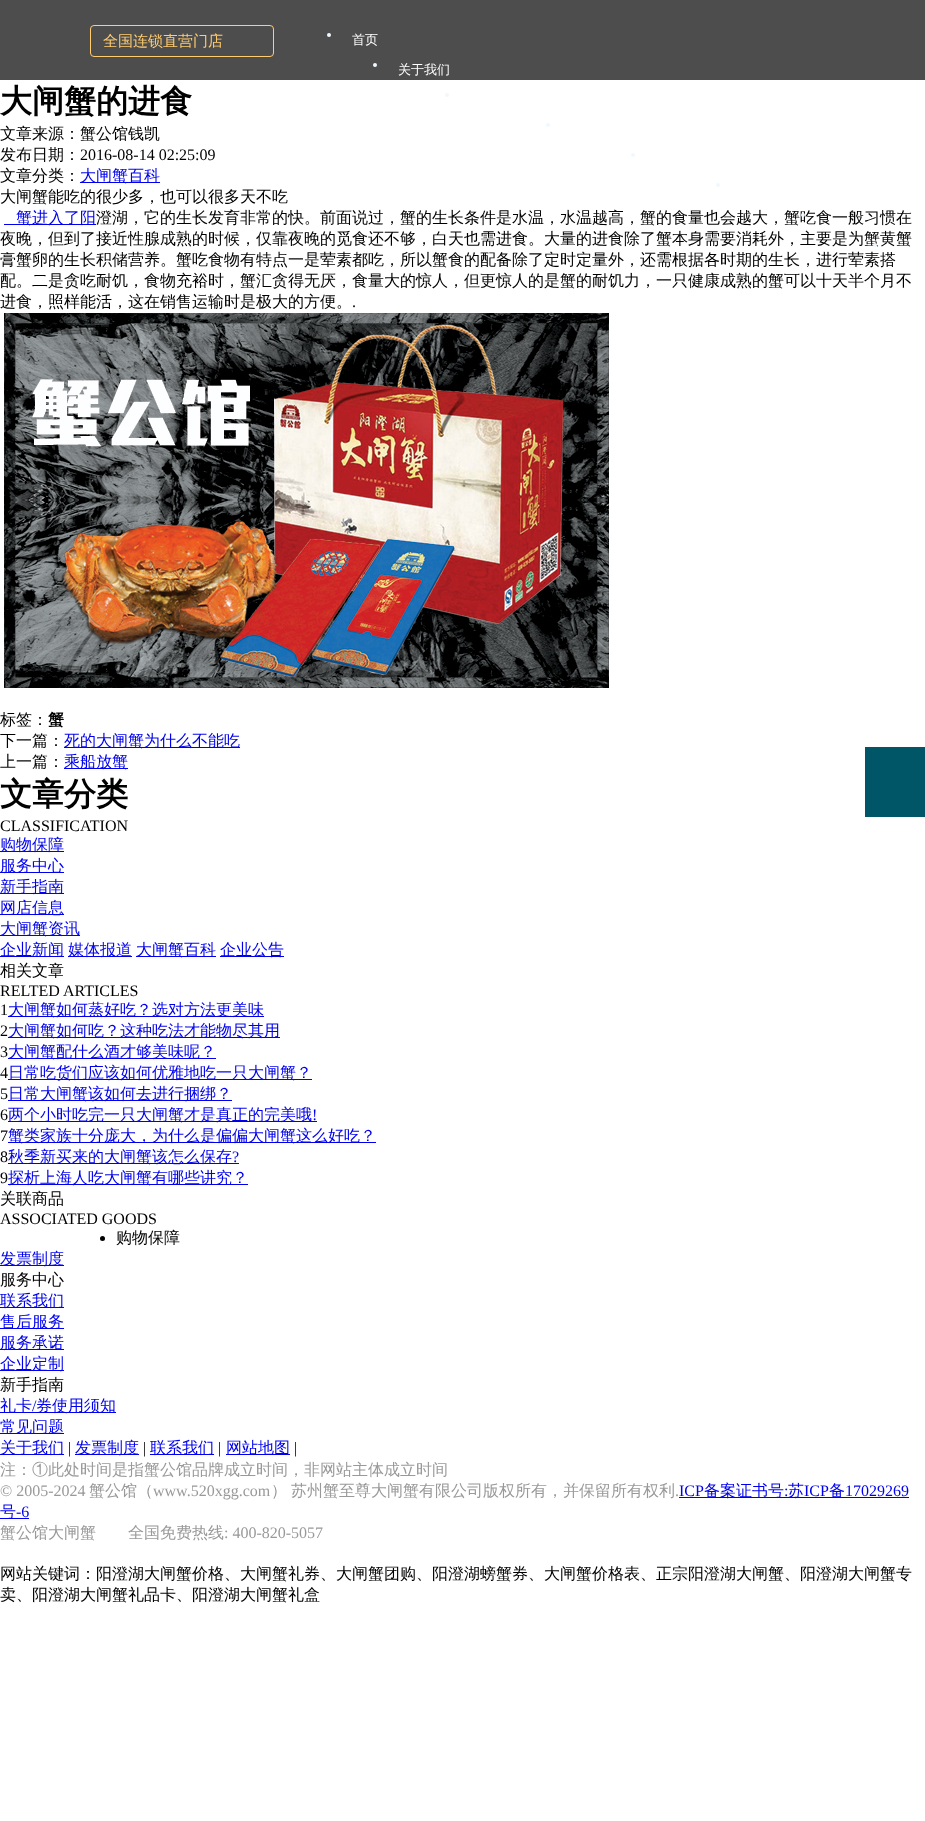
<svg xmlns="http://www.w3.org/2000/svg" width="925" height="1821">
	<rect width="100%" height="100%" fill="#FFFFFF" />
	<rect x="0" y="0" width="925" height="80" fill="#4D4D4D" />
	<rect x="90.5" y="25.5" width="183" height="31" rx="3.5" fill="none" stroke="#FFCC70" />
	<text x="103" y="46" font-family="WenQuanYi Zen Hei" font-size="15" font-weight="500" fill="#FFCC70">全国连锁直营门店</text>
	<circle cx="329" cy="35" r="2" fill="#F0F8FF" />
	<text x="352" y="44" font-family="WenQuanYi Zen Hei" font-size="13" font-weight="500" fill="#FFFFFF">首页</text>
	<circle cx="375" cy="65" r="2" fill="#F0F8FF" />
	<text x="398" y="74" font-family="WenQuanYi Zen Hei" font-size="13" font-weight="500" fill="#FFFFFF">关于我们</text>
	<circle cx="447" cy="95" r="2" fill="#F0F8FF" />
	<circle cx="548" cy="125" r="2" fill="#F0F8FF" />
	<circle cx="633" cy="155" r="2" fill="#F0F8FF" />
	<circle cx="718" cy="185" r="2" fill="#F0F8FF" />
	<text x="96" y="223" font-family="WenQuanYi Zen Hei" font-size="16" font-weight="500" fill="#000000">澄湖，它的生长发育非常的快。前面说过，蟹的生长条件是水温，水温越高，蟹的食量也会越大，蟹吃食一般习惯在</text>
	<circle cx="803" cy="215" r="2" fill="#F0F8FF" />
	<text x="0" y="244" font-family="WenQuanYi Zen Hei" font-size="16" font-weight="500" fill="#000000">夜晚，但到了接近性腺成熟的时候，仅靠夜晚的觅食还不够，白天也需进食。大量的进食除了蟹本身需要消耗外，主要是为蟹黄蟹</text>
	<circle cx="875" cy="245" r="2" fill="#F0F8FF" />
	<text x="0" y="112" font-family="WenQuanYi Zen Hei" font-size="32" font-weight="700" fill="#000000">大闸蟹的进食</text>
	<g font-family="WenQuanYi Zen Hei" font-size="16" font-weight="500" fill="#000000">
		<text x="0" y="139">文章来源：蟹公馆钱凯</text>
		<text x="0" y="160">发布日期：</text>
	</g>
	<text x="80" y="160" font-family="Liberation Serif" font-size="16" fill="#000000">2016-08-14 02:25:09</text>
	<text x="0" y="181" font-family="WenQuanYi Zen Hei" font-size="16" font-weight="500" fill="#000000">文章分类：</text>
	<rect x="80" y="182" width="80" height="1" fill="#0000EE" />
	<text x="80" y="181" font-family="WenQuanYi Zen Hei" font-size="16" font-weight="500" fill="#0000EE">大闸蟹百科</text>
	<text x="0" y="202" font-family="WenQuanYi Zen Hei" font-size="16" font-weight="500" fill="#000000">大闸蟹能吃的很少多，也可以很多天不吃</text>
	<rect x="4" y="224" width="92" height="1" fill="#0000EE" />
	<text x="16" y="223" font-family="WenQuanYi Zen Hei" font-size="16" font-weight="500" fill="#0000EE">蟹进入了阳</text>
	<g font-family="WenQuanYi Zen Hei" font-size="16" font-weight="500" fill="#000000">
		<text x="0" y="265">膏蟹卵的生长积储营养。蟹吃食物有特点一是荤素都吃，所以蟹食的配备除了定时定量外，还需根据各时期的生长，进行荤素搭</text>
		<text x="0" y="286">配。二是贪吃耐饥，食物充裕时，蟹汇贪得无厌，食量大的惊人，但更惊人的是蟹的耐饥力，一只健康成熟的蟹可以十天半个月不</text>
		<text x="0" y="307">进食，照样能活，这在销售运输时是极大的方便。</text>
	</g>
	<text x="352" y="307" font-family="Liberation Serif" font-size="16" fill="#000000">.</text>
	<image x="4" y="313" width="605" height="375" href="assets/img1.png" />
	<text x="0" y="725" font-family="WenQuanYi Zen Hei" font-size="16" font-weight="500" fill="#000000">标签：</text>
	<text x="48" y="725" font-family="WenQuanYi Zen Hei" font-size="16" font-weight="700" fill="#000000">蟹</text>
	<text x="0" y="746" font-family="WenQuanYi Zen Hei" font-size="16" font-weight="500" fill="#000000">下一篇：</text>
	<rect x="64" y="747" width="176" height="1" fill="#0000EE" />
	<text x="64" y="746" font-family="WenQuanYi Zen Hei" font-size="16" font-weight="500" fill="#0000EE">死的大闸蟹为什么不能吃</text>
	<text x="0" y="767" font-family="WenQuanYi Zen Hei" font-size="16" font-weight="500" fill="#000000">上一篇：</text>
	<rect x="64" y="768" width="64" height="1" fill="#0000EE" />
	<text x="64" y="767" font-family="WenQuanYi Zen Hei" font-size="16" font-weight="500" fill="#0000EE">乘船放蟹</text>
	<text x="0" y="805" font-family="WenQuanYi Zen Hei" font-size="32" font-weight="700" fill="#000000">文章分类</text>
	<text x="0" y="831" font-family="Liberation Serif" font-size="16" fill="#000000">CLASSIFICATION</text>
	<rect x="0" y="851" width="64" height="1" fill="#0000EE" />
	<text x="0" y="850" font-family="WenQuanYi Zen Hei" font-size="16" font-weight="500" fill="#0000EE">购物保障</text>
	<rect x="0" y="872" width="64" height="1" fill="#0000EE" />
	<text x="0" y="871" font-family="WenQuanYi Zen Hei" font-size="16" font-weight="500" fill="#0000EE">服务中心</text>
	<rect x="0" y="893" width="64" height="1" fill="#0000EE" />
	<text x="0" y="892" font-family="WenQuanYi Zen Hei" font-size="16" font-weight="500" fill="#0000EE">新手指南</text>
	<rect x="0" y="914" width="64" height="1" fill="#0000EE" />
	<text x="0" y="913" font-family="WenQuanYi Zen Hei" font-size="16" font-weight="500" fill="#0000EE">网店信息</text>
	<rect x="0" y="935" width="80" height="1" fill="#0000EE" />
	<text x="0" y="934" font-family="WenQuanYi Zen Hei" font-size="16" font-weight="500" fill="#0000EE">大闸蟹资讯</text>
	<rect x="0" y="956" width="64" height="1" fill="#0000EE" />
	<text x="0" y="955" font-family="WenQuanYi Zen Hei" font-size="16" font-weight="500" fill="#0000EE">企业新闻</text>
	<rect x="68" y="956" width="64" height="1" fill="#0000EE" />
	<text x="68" y="955" font-family="WenQuanYi Zen Hei" font-size="16" font-weight="500" fill="#0000EE">媒体报道</text>
	<rect x="136" y="956" width="80" height="1" fill="#0000EE" />
	<text x="136" y="955" font-family="WenQuanYi Zen Hei" font-size="16" font-weight="500" fill="#0000EE">大闸蟹百科</text>
	<rect x="220" y="956" width="64" height="1" fill="#0000EE" />
	<text x="220" y="955" font-family="WenQuanYi Zen Hei" font-size="16" font-weight="500" fill="#0000EE">企业公告</text>
	<text x="0" y="976" font-family="WenQuanYi Zen Hei" font-size="16" font-weight="500" fill="#000000">相关文章</text>
	<g font-family="Liberation Serif" font-size="16" fill="#000000">
		<text x="0" y="996">RELTED ARTICLES</text>
		<text x="0" y="1015">1</text>
	</g>
	<rect x="8" y="1016" width="256" height="1" fill="#0000EE" />
	<text x="8" y="1015" font-family="WenQuanYi Zen Hei" font-size="16" font-weight="500" fill="#0000EE">大闸蟹如何蒸好吃？选对方法更美味</text>
	<text x="0" y="1036" font-family="Liberation Serif" font-size="16" fill="#000000">2</text>
	<rect x="8" y="1037" width="272" height="1" fill="#0000EE" />
	<text x="8" y="1036" font-family="WenQuanYi Zen Hei" font-size="16" font-weight="500" fill="#0000EE">大闸蟹如何吃？这种吃法才能物尽其用</text>
	<text x="0" y="1057" font-family="Liberation Serif" font-size="16" fill="#000000">3</text>
	<rect x="8" y="1058" width="208" height="1" fill="#0000EE" />
	<text x="8" y="1057" font-family="WenQuanYi Zen Hei" font-size="16" font-weight="500" fill="#0000EE">大闸蟹配什么酒才够美味呢？</text>
	<text x="0" y="1078" font-family="Liberation Serif" font-size="16" fill="#000000">4</text>
	<rect x="8" y="1079" width="304" height="1" fill="#0000EE" />
	<text x="8" y="1078" font-family="WenQuanYi Zen Hei" font-size="16" font-weight="500" fill="#0000EE">日常吃货们应该如何优雅地吃一只大闸蟹？</text>
	<text x="0" y="1099" font-family="Liberation Serif" font-size="16" fill="#000000">5</text>
	<rect x="8" y="1100" width="224" height="1" fill="#0000EE" />
	<text x="8" y="1099" font-family="WenQuanYi Zen Hei" font-size="16" font-weight="500" fill="#0000EE">日常大闸蟹该如何去进行捆绑？</text>
	<text x="0" y="1120" font-family="Liberation Serif" font-size="16" fill="#000000">6</text>
	<rect x="8" y="1121" width="309" height="1" fill="#0000EE" />
	<text x="8" y="1120" font-family="WenQuanYi Zen Hei" font-size="16" font-weight="500" fill="#0000EE">两个小时吃完一只大闸蟹才是真正的完美哦</text>
	<text x="312" y="1120" font-family="Liberation Serif" font-size="16" fill="#0000EE">!</text>
	<text x="0" y="1141" font-family="Liberation Serif" font-size="16" fill="#000000">7</text>
	<rect x="8" y="1142" width="368" height="1" fill="#0000EE" />
	<text x="8" y="1141" font-family="WenQuanYi Zen Hei" font-size="16" font-weight="500" fill="#0000EE">蟹类家族十分庞大，为什么是偏偏大闸蟹这么好吃？</text>
	<text x="0" y="1162" font-family="Liberation Serif" font-size="16" fill="#000000">8</text>
	<rect x="8" y="1163" width="231" height="1" fill="#0000EE" />
	<text x="8" y="1162" font-family="WenQuanYi Zen Hei" font-size="16" font-weight="500" fill="#0000EE">秋季新买来的大闸蟹该怎么保存</text>
	<text x="232" y="1162" font-family="Liberation Serif" font-size="16" fill="#0000EE">?</text>
	<text x="0" y="1183" font-family="Liberation Serif" font-size="16" fill="#000000">9</text>
	<rect x="8" y="1184" width="240" height="1" fill="#0000EE" />
	<text x="8" y="1183" font-family="WenQuanYi Zen Hei" font-size="16" font-weight="500" fill="#0000EE">探析上海人吃大闸蟹有哪些讲究？</text>
	<text x="0" y="1204" font-family="WenQuanYi Zen Hei" font-size="16" font-weight="500" fill="#000000">关联商品</text>
	<text x="0" y="1224" font-family="Liberation Serif" font-size="16" fill="#000000">ASSOCIATED GOODS</text>
	<rect x="865" y="747" width="60" height="70" fill="#005566" />
	<circle cx="102.5" cy="1238.5" r="2.5" fill="#000000" />
	<text x="116" y="1243" font-family="WenQuanYi Zen Hei" font-size="16" font-weight="500" fill="#000000">购物保障</text>
	<rect x="0" y="1265" width="64" height="1" fill="#0000EE" />
	<text x="0" y="1264" font-family="WenQuanYi Zen Hei" font-size="16" font-weight="500" fill="#0000EE">发票制度</text>
	<text x="0" y="1285" font-family="WenQuanYi Zen Hei" font-size="16" font-weight="500" fill="#000000">服务中心</text>
	<rect x="0" y="1307" width="64" height="1" fill="#0000EE" />
	<text x="0" y="1306" font-family="WenQuanYi Zen Hei" font-size="16" font-weight="500" fill="#0000EE">联系我们</text>
	<rect x="0" y="1328" width="64" height="1" fill="#0000EE" />
	<text x="0" y="1327" font-family="WenQuanYi Zen Hei" font-size="16" font-weight="500" fill="#0000EE">售后服务</text>
	<rect x="0" y="1349" width="64" height="1" fill="#0000EE" />
	<text x="0" y="1348" font-family="WenQuanYi Zen Hei" font-size="16" font-weight="500" fill="#0000EE">服务承诺</text>
	<rect x="0" y="1370" width="64" height="1" fill="#0000EE" />
	<text x="0" y="1369" font-family="WenQuanYi Zen Hei" font-size="16" font-weight="500" fill="#0000EE">企业定制</text>
	<text x="0" y="1390" font-family="WenQuanYi Zen Hei" font-size="16" font-weight="500" fill="#000000">新手指南</text>
	<rect x="0" y="1412" width="116" height="1" fill="#0000EE" />
	<text x="0" y="1411" font-family="WenQuanYi Zen Hei" font-size="16" font-weight="500" fill="#0000EE">礼卡</text>
	<text x="32" y="1411" font-family="Liberation Serif" font-size="16" fill="#0000EE">/</text>
	<text x="36" y="1411" font-family="WenQuanYi Zen Hei" font-size="16" font-weight="500" fill="#0000EE">券使用须知</text>
	<rect x="0" y="1433" width="64" height="1" fill="#0000EE" />
	<text x="0" y="1432" font-family="WenQuanYi Zen Hei" font-size="16" font-weight="500" fill="#0000EE">常见问题</text>
	<rect x="0" y="1454" width="64" height="1" fill="#0000EE" />
	<text x="0" y="1453" font-family="WenQuanYi Zen Hei" font-size="16" font-weight="500" fill="#0000EE">关于我们</text>
	<text x="68" y="1453" font-family="Liberation Serif" font-size="16" fill="#000000">|</text>
	<rect x="75" y="1454" width="64" height="1" fill="#0000EE" />
	<text x="75" y="1453" font-family="WenQuanYi Zen Hei" font-size="16" font-weight="500" fill="#0000EE">发票制度</text>
	<text x="143" y="1453" font-family="Liberation Serif" font-size="16" fill="#000000">|</text>
	<rect x="150" y="1454" width="64" height="1" fill="#0000EE" />
	<text x="150" y="1453" font-family="WenQuanYi Zen Hei" font-size="16" font-weight="500" fill="#0000EE">联系我们</text>
	<text x="218" y="1453" font-family="Liberation Serif" font-size="16" fill="#000000">|</text>
	<rect x="226" y="1454" width="64" height="1" fill="#0000EE" />
	<text x="226" y="1453" font-family="WenQuanYi Zen Hei" font-size="16" font-weight="500" fill="#0000EE">网站地图</text>
	<text x="294" y="1453" font-family="Liberation Serif" font-size="16" fill="#000000">|</text>
	<text x="0" y="1475" font-family="WenQuanYi Zen Hei" font-size="16" font-weight="500" fill="#999999">注：①此处时间是指蟹公馆品牌成立时间，非网站主体成立时间</text>
	<text x="0" y="1496" font-family="Liberation Serif" font-size="16" fill="#999999">© 2005-2024</text>
	<text x="89" y="1496" font-family="WenQuanYi Zen Hei" font-size="16" font-weight="500" fill="#999999">蟹公馆（</text>
	<text x="153" y="1496" font-family="Liberation Serif" font-size="16" fill="#999999">www.520xgg.com</text>
	<g font-family="WenQuanYi Zen Hei" font-size="16" font-weight="500" fill="#999999">
		<text x="271" y="1496">）</text>
		<text x="291" y="1496">苏州蟹至尊大闸蟹有限公司版权所有，并保留所有权利</text>
	</g>
	<text x="675" y="1496" font-family="Liberation Serif" font-size="16" fill="#999999">.</text>
	<text x="679" y="1496" font-family="Liberation Serif" font-size="16" fill="#0000EE">ICP</text>
	<rect x="679" y="1497" width="230" height="1" fill="#0000EE" />
	<text x="704" y="1496" font-family="WenQuanYi Zen Hei" font-size="16" font-weight="500" fill="#0000EE">备案证书号</text>
	<text x="784" y="1496" font-family="Liberation Serif" font-size="16" fill="#0000EE">:</text>
	<text x="788" y="1496" font-family="WenQuanYi Zen Hei" font-size="16" font-weight="500" fill="#0000EE">苏</text>
	<text x="804" y="1496" font-family="Liberation Serif" font-size="16" fill="#0000EE">ICP</text>
	<text x="829" y="1496" font-family="WenQuanYi Zen Hei" font-size="16" font-weight="500" fill="#0000EE">备</text>
	<text x="845" y="1496" font-family="Liberation Serif" font-size="16" fill="#0000EE">17029269</text>
	<rect x="0" y="1518" width="29" height="1" fill="#0000EE" />
	<text x="0" y="1517" font-family="WenQuanYi Zen Hei" font-size="16" font-weight="500" fill="#0000EE">号</text>
	<text x="16" y="1517" font-family="Liberation Serif" font-size="16" fill="#0000EE">-6</text>
	<text x="0" y="1538" font-family="WenQuanYi Zen Hei" font-size="16" font-weight="500" fill="#999999">蟹公馆大闸蟹　　全国免费热线</text>
	<text x="224" y="1538" font-family="Liberation Serif" font-size="16" fill="#999999">: 400-820-5057</text>
	<g font-family="WenQuanYi Zen Hei" font-size="16" font-weight="500" fill="#000000">
		<text x="0" y="1579">网站关键词：阳澄湖大闸蟹价格、大闸蟹礼券、大闸蟹团购、阳澄湖螃蟹券、大闸蟹价格表、正宗阳澄湖大闸蟹、阳澄湖大闸蟹专</text>
		<text x="0" y="1600">卖、阳澄湖大闸蟹礼品卡、阳澄湖大闸蟹礼盒</text>
	</g>
</svg>
